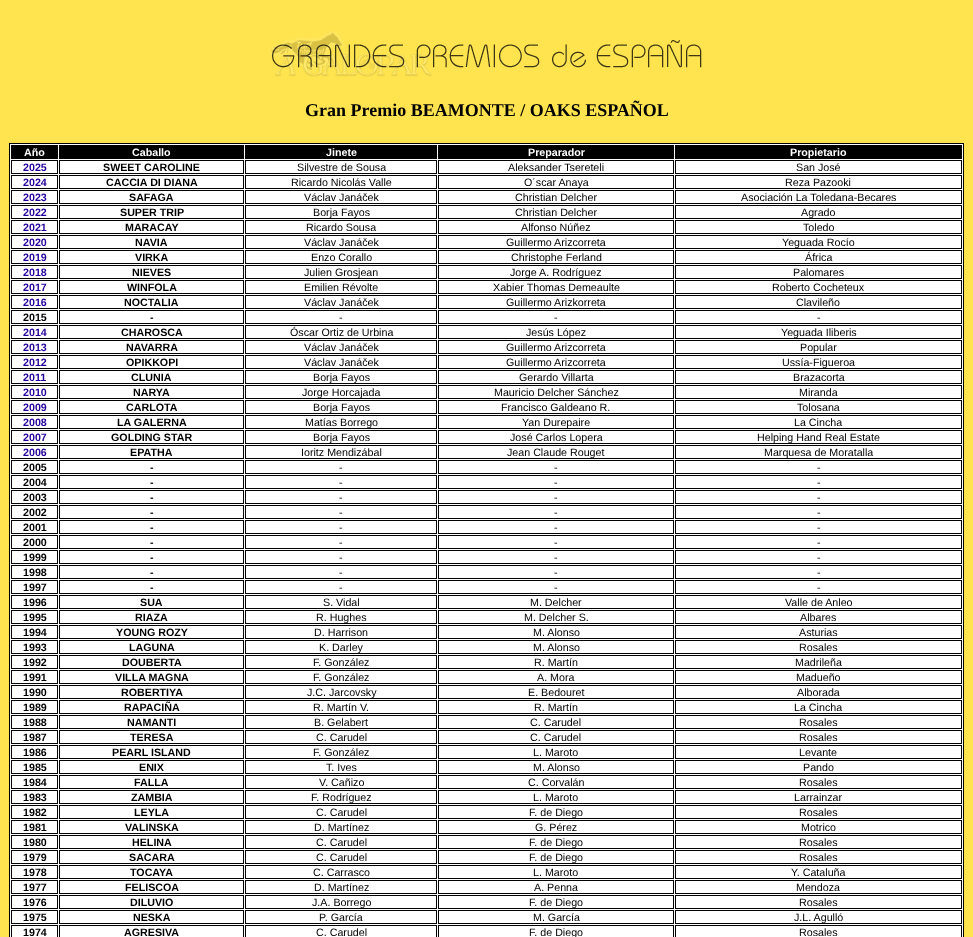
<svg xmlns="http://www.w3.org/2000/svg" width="973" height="937">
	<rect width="100%" height="100%" fill="#FFE44F" />
	<image x="270" y="31" width="432" height="46" href="assets/img1.png" />
	<text x="305" y="116" font-family="Liberation Serif" font-size="18" font-weight="700" fill="#000000">Gran Premio BEAMONTE / OAKS ESPAÑOL</text>
	<rect x="9.5" y="143.5" width="954" height="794" fill="#FFFFFF" stroke="#000000" />
	<rect x="11" y="145" width="47" height="14" fill="#000000" />
	<text x="24" y="156" font-family="Liberation Sans" font-size="10.7" font-weight="700" fill="#FFFFFF">Año</text>
	<rect x="59" y="145" width="185" height="14" fill="#000000" />
	<text x="132" y="156" font-family="Liberation Sans" font-size="10.7" font-weight="700" fill="#FFFFFF">Caballo</text>
	<rect x="245" y="145" width="192" height="14" fill="#000000" />
	<text x="326" y="156" font-family="Liberation Sans" font-size="10.7" font-weight="700" fill="#FFFFFF">Jinete</text>
	<rect x="438" y="145" width="236" height="14" fill="#000000" />
	<text x="528" y="156" font-family="Liberation Sans" font-size="10.7" font-weight="700" fill="#FFFFFF">Preparador</text>
	<rect x="675" y="145" width="287" height="14" fill="#000000" />
	<text x="790" y="156" font-family="Liberation Sans" font-size="10.7" font-weight="700" fill="#FFFFFF">Propietario</text>
	<rect x="11.5" y="160.5" width="46" height="13" fill="none" stroke="#000000" />
	<text x="23" y="171" font-family="Liberation Sans" font-size="10.7" font-weight="700" fill="#25009D">2025</text>
	<rect x="59.5" y="160.5" width="184" height="13" fill="none" stroke="#000000" />
	<text x="103" y="171" font-family="Liberation Sans" font-size="10.7" font-weight="700" fill="#000000">SWEET CAROLINE</text>
	<rect x="245.5" y="160.5" width="191" height="13" fill="none" stroke="#000000" />
	<text x="297" y="171" font-family="Liberation Sans" font-size="10.7" fill="#000000">Silvestre de Sousa</text>
	<rect x="438.5" y="160.5" width="235" height="13" fill="none" stroke="#000000" />
	<text x="508" y="171" font-family="Liberation Sans" font-size="10.7" fill="#000000">Aleksander Tsereteli</text>
	<rect x="675.5" y="160.5" width="286" height="13" fill="none" stroke="#000000" />
	<text x="796" y="171" font-family="Liberation Sans" font-size="10.7" fill="#000000">San José</text>
	<rect x="11.5" y="175.5" width="46" height="13" fill="none" stroke="#000000" />
	<text x="23" y="186" font-family="Liberation Sans" font-size="10.7" font-weight="700" fill="#25009D">2024</text>
	<rect x="59.5" y="175.5" width="184" height="13" fill="none" stroke="#000000" />
	<text x="106" y="186" font-family="Liberation Sans" font-size="10.7" font-weight="700" fill="#000000">CACCIA DI DIANA</text>
	<rect x="245.5" y="175.5" width="191" height="13" fill="none" stroke="#000000" />
	<text x="291" y="186" font-family="Liberation Sans" font-size="10.7" fill="#000000">Ricardo Nicolás Valle</text>
	<rect x="438.5" y="175.5" width="235" height="13" fill="none" stroke="#000000" />
	<text x="524" y="186" font-family="Liberation Sans" font-size="10.7" fill="#000000">O´scar Anaya</text>
	<rect x="675.5" y="175.5" width="286" height="13" fill="none" stroke="#000000" />
	<text x="785" y="186" font-family="Liberation Sans" font-size="10.7" fill="#000000">Reza Pazooki</text>
	<rect x="11.5" y="190.5" width="46" height="13" fill="none" stroke="#000000" />
	<text x="23" y="201" font-family="Liberation Sans" font-size="10.7" font-weight="700" fill="#25009D">2023</text>
	<rect x="59.5" y="190.5" width="184" height="13" fill="none" stroke="#000000" />
	<text x="129" y="201" font-family="Liberation Sans" font-size="10.7" font-weight="700" fill="#000000">SAFAGA</text>
	<rect x="245.5" y="190.5" width="191" height="13" fill="none" stroke="#000000" />
	<text x="304" y="201" font-family="Liberation Sans" font-size="10.7" fill="#000000">Václav Janáček</text>
	<rect x="438.5" y="190.5" width="235" height="13" fill="none" stroke="#000000" />
	<text x="515" y="201" font-family="Liberation Sans" font-size="10.7" fill="#000000">Christian Delcher</text>
	<rect x="675.5" y="190.5" width="286" height="13" fill="none" stroke="#000000" />
	<text x="741" y="201" font-family="Liberation Sans" font-size="10.7" fill="#000000">Asociación La Toledana-Becares</text>
	<rect x="11.5" y="205.5" width="46" height="13" fill="none" stroke="#000000" />
	<text x="23" y="216" font-family="Liberation Sans" font-size="10.7" font-weight="700" fill="#25009D">2022</text>
	<rect x="59.5" y="205.5" width="184" height="13" fill="none" stroke="#000000" />
	<text x="120" y="216" font-family="Liberation Sans" font-size="10.7" font-weight="700" fill="#000000">SUPER TRIP</text>
	<rect x="245.5" y="205.5" width="191" height="13" fill="none" stroke="#000000" />
	<text x="313" y="216" font-family="Liberation Sans" font-size="10.7" fill="#000000">Borja Fayos</text>
	<rect x="438.5" y="205.5" width="235" height="13" fill="none" stroke="#000000" />
	<text x="515" y="216" font-family="Liberation Sans" font-size="10.7" fill="#000000">Christian Delcher</text>
	<rect x="675.5" y="205.5" width="286" height="13" fill="none" stroke="#000000" />
	<text x="801" y="216" font-family="Liberation Sans" font-size="10.7" fill="#000000">Agrado</text>
	<rect x="11.5" y="220.5" width="46" height="13" fill="none" stroke="#000000" />
	<text x="23" y="231" font-family="Liberation Sans" font-size="10.7" font-weight="700" fill="#25009D">2021</text>
	<rect x="59.5" y="220.5" width="184" height="13" fill="none" stroke="#000000" />
	<text x="125" y="231" font-family="Liberation Sans" font-size="10.7" font-weight="700" fill="#000000">MARACAY</text>
	<rect x="245.5" y="220.5" width="191" height="13" fill="none" stroke="#000000" />
	<text x="306" y="231" font-family="Liberation Sans" font-size="10.7" fill="#000000">Ricardo Sousa</text>
	<rect x="438.5" y="220.5" width="235" height="13" fill="none" stroke="#000000" />
	<text x="521" y="231" font-family="Liberation Sans" font-size="10.7" fill="#000000">Alfonso Núñez</text>
	<rect x="675.5" y="220.5" width="286" height="13" fill="none" stroke="#000000" />
	<text x="803" y="231" font-family="Liberation Sans" font-size="10.7" fill="#000000">Toledo</text>
	<rect x="11.5" y="235.5" width="46" height="13" fill="none" stroke="#000000" />
	<text x="23" y="246" font-family="Liberation Sans" font-size="10.7" font-weight="700" fill="#25009D">2020</text>
	<rect x="59.5" y="235.5" width="184" height="13" fill="none" stroke="#000000" />
	<text x="135" y="246" font-family="Liberation Sans" font-size="10.7" font-weight="700" fill="#000000">NAVIA</text>
	<rect x="245.5" y="235.5" width="191" height="13" fill="none" stroke="#000000" />
	<text x="304" y="246" font-family="Liberation Sans" font-size="10.7" fill="#000000">Václav Janáček</text>
	<rect x="438.5" y="235.5" width="235" height="13" fill="none" stroke="#000000" />
	<text x="506" y="246" font-family="Liberation Sans" font-size="10.7" fill="#000000">Guillermo Arizcorreta</text>
	<rect x="675.5" y="235.5" width="286" height="13" fill="none" stroke="#000000" />
	<text x="782" y="246" font-family="Liberation Sans" font-size="10.7" fill="#000000">Yeguada Rocío</text>
	<rect x="11.5" y="250.5" width="46" height="13" fill="none" stroke="#000000" />
	<text x="23" y="261" font-family="Liberation Sans" font-size="10.7" font-weight="700" fill="#25009D">2019</text>
	<rect x="59.5" y="250.5" width="184" height="13" fill="none" stroke="#000000" />
	<text x="135" y="261" font-family="Liberation Sans" font-size="10.7" font-weight="700" fill="#000000">VIRKA</text>
	<rect x="245.5" y="250.5" width="191" height="13" fill="none" stroke="#000000" />
	<text x="311" y="261" font-family="Liberation Sans" font-size="10.7" fill="#000000">Enzo Corallo</text>
	<rect x="438.5" y="250.5" width="235" height="13" fill="none" stroke="#000000" />
	<text x="511" y="261" font-family="Liberation Sans" font-size="10.7" fill="#000000">Christophe Ferland</text>
	<rect x="675.5" y="250.5" width="286" height="13" fill="none" stroke="#000000" />
	<text x="805" y="261" font-family="Liberation Sans" font-size="10.7" fill="#000000">África</text>
	<rect x="11.5" y="265.5" width="46" height="13" fill="none" stroke="#000000" />
	<text x="23" y="276" font-family="Liberation Sans" font-size="10.7" font-weight="700" fill="#25009D">2018</text>
	<rect x="59.5" y="265.5" width="184" height="13" fill="none" stroke="#000000" />
	<text x="132" y="276" font-family="Liberation Sans" font-size="10.7" font-weight="700" fill="#000000">NIEVES</text>
	<rect x="245.5" y="265.5" width="191" height="13" fill="none" stroke="#000000" />
	<text x="304" y="276" font-family="Liberation Sans" font-size="10.7" fill="#000000">Julien Grosjean</text>
	<rect x="438.5" y="265.5" width="235" height="13" fill="none" stroke="#000000" />
	<text x="510" y="276" font-family="Liberation Sans" font-size="10.7" fill="#000000">Jorge A. Rodríguez</text>
	<rect x="675.5" y="265.5" width="286" height="13" fill="none" stroke="#000000" />
	<text x="793" y="276" font-family="Liberation Sans" font-size="10.7" fill="#000000">Palomares</text>
	<rect x="11.5" y="280.5" width="46" height="13" fill="none" stroke="#000000" />
	<text x="23" y="291" font-family="Liberation Sans" font-size="10.7" font-weight="700" fill="#25009D">2017</text>
	<rect x="59.5" y="280.5" width="184" height="13" fill="none" stroke="#000000" />
	<text x="127" y="291" font-family="Liberation Sans" font-size="10.7" font-weight="700" fill="#000000">WINFOLA</text>
	<rect x="245.5" y="280.5" width="191" height="13" fill="none" stroke="#000000" />
	<text x="304" y="291" font-family="Liberation Sans" font-size="10.7" fill="#000000">Emilien Révolte</text>
	<rect x="438.5" y="280.5" width="235" height="13" fill="none" stroke="#000000" />
	<text x="493" y="291" font-family="Liberation Sans" font-size="10.7" fill="#000000">Xabier Thomas Demeaulte</text>
	<rect x="675.5" y="280.5" width="286" height="13" fill="none" stroke="#000000" />
	<text x="772" y="291" font-family="Liberation Sans" font-size="10.7" fill="#000000">Roberto Cocheteux</text>
	<rect x="11.5" y="295.5" width="46" height="13" fill="none" stroke="#000000" />
	<text x="23" y="306" font-family="Liberation Sans" font-size="10.7" font-weight="700" fill="#25009D">2016</text>
	<rect x="59.5" y="295.5" width="184" height="13" fill="none" stroke="#000000" />
	<text x="124" y="306" font-family="Liberation Sans" font-size="10.7" font-weight="700" fill="#000000">NOCTALIA</text>
	<rect x="245.5" y="295.5" width="191" height="13" fill="none" stroke="#000000" />
	<text x="304" y="306" font-family="Liberation Sans" font-size="10.7" fill="#000000">Václav Janáček</text>
	<rect x="438.5" y="295.5" width="235" height="13" fill="none" stroke="#000000" />
	<text x="506" y="306" font-family="Liberation Sans" font-size="10.7" fill="#000000">Guillermo Arizkorreta</text>
	<rect x="675.5" y="295.5" width="286" height="13" fill="none" stroke="#000000" />
	<text x="796" y="306" font-family="Liberation Sans" font-size="10.7" fill="#000000">Clavileño</text>
	<rect x="11.5" y="310.5" width="46" height="13" fill="none" stroke="#000000" />
	<text x="23" y="321" font-family="Liberation Sans" font-size="10.7" font-weight="700" fill="#000000">2015</text>
	<rect x="59.5" y="310.5" width="184" height="13" fill="none" stroke="#000000" />
	<text x="150" y="321" font-family="Liberation Sans" font-size="10.7" font-weight="700" fill="#000000">-</text>
	<rect x="245.5" y="310.5" width="191" height="13" fill="none" stroke="#000000" />
	<text x="339" y="321" font-family="Liberation Sans" font-size="10.7" fill="#000000">-</text>
	<rect x="438.5" y="310.5" width="235" height="13" fill="none" stroke="#000000" />
	<text x="554" y="321" font-family="Liberation Sans" font-size="10.7" fill="#000000">-</text>
	<rect x="675.5" y="310.5" width="286" height="13" fill="none" stroke="#000000" />
	<text x="817" y="321" font-family="Liberation Sans" font-size="10.7" fill="#000000">-</text>
	<rect x="11.5" y="325.5" width="46" height="13" fill="none" stroke="#000000" />
	<text x="23" y="336" font-family="Liberation Sans" font-size="10.7" font-weight="700" fill="#25009D">2014</text>
	<rect x="59.5" y="325.5" width="184" height="13" fill="none" stroke="#000000" />
	<text x="121" y="336" font-family="Liberation Sans" font-size="10.7" font-weight="700" fill="#000000">CHAROSCA</text>
	<rect x="245.5" y="325.5" width="191" height="13" fill="none" stroke="#000000" />
	<text x="290" y="336" font-family="Liberation Sans" font-size="10.7" fill="#000000">Óscar Ortiz de Urbina</text>
	<rect x="438.5" y="325.5" width="235" height="13" fill="none" stroke="#000000" />
	<text x="526" y="336" font-family="Liberation Sans" font-size="10.7" fill="#000000">Jesús López</text>
	<rect x="675.5" y="325.5" width="286" height="13" fill="none" stroke="#000000" />
	<text x="781" y="336" font-family="Liberation Sans" font-size="10.7" fill="#000000">Yeguada Iliberis</text>
	<rect x="11.5" y="340.5" width="46" height="13" fill="none" stroke="#000000" />
	<text x="23" y="351" font-family="Liberation Sans" font-size="10.7" font-weight="700" fill="#25009D">2013</text>
	<rect x="59.5" y="340.5" width="184" height="13" fill="none" stroke="#000000" />
	<text x="126" y="351" font-family="Liberation Sans" font-size="10.7" font-weight="700" fill="#000000">NAVARRA</text>
	<rect x="245.5" y="340.5" width="191" height="13" fill="none" stroke="#000000" />
	<text x="304" y="351" font-family="Liberation Sans" font-size="10.7" fill="#000000">Václav Janáček</text>
	<rect x="438.5" y="340.5" width="235" height="13" fill="none" stroke="#000000" />
	<text x="506" y="351" font-family="Liberation Sans" font-size="10.7" fill="#000000">Guillermo Arizcorreta</text>
	<rect x="675.5" y="340.5" width="286" height="13" fill="none" stroke="#000000" />
	<text x="800" y="351" font-family="Liberation Sans" font-size="10.7" fill="#000000">Popular</text>
	<rect x="11.5" y="355.5" width="46" height="13" fill="none" stroke="#000000" />
	<text x="23" y="366" font-family="Liberation Sans" font-size="10.7" font-weight="700" fill="#25009D">2012</text>
	<rect x="59.5" y="355.5" width="184" height="13" fill="none" stroke="#000000" />
	<text x="126" y="366" font-family="Liberation Sans" font-size="10.7" font-weight="700" fill="#000000">OPIKKOPI</text>
	<rect x="245.5" y="355.5" width="191" height="13" fill="none" stroke="#000000" />
	<text x="304" y="366" font-family="Liberation Sans" font-size="10.7" fill="#000000">Václav Janáček</text>
	<rect x="438.5" y="355.5" width="235" height="13" fill="none" stroke="#000000" />
	<text x="506" y="366" font-family="Liberation Sans" font-size="10.7" fill="#000000">Guillermo Arizcorreta</text>
	<rect x="675.5" y="355.5" width="286" height="13" fill="none" stroke="#000000" />
	<text x="782" y="366" font-family="Liberation Sans" font-size="10.7" fill="#000000">Ussía-Figueroa</text>
	<rect x="11.5" y="370.5" width="46" height="13" fill="none" stroke="#000000" />
	<text x="23" y="381" font-family="Liberation Sans" font-size="10.7" font-weight="700" fill="#25009D">2011</text>
	<rect x="59.5" y="370.5" width="184" height="13" fill="none" stroke="#000000" />
	<text x="131" y="381" font-family="Liberation Sans" font-size="10.7" font-weight="700" fill="#000000">CLUNIA</text>
	<rect x="245.5" y="370.5" width="191" height="13" fill="none" stroke="#000000" />
	<text x="313" y="381" font-family="Liberation Sans" font-size="10.7" fill="#000000">Borja Fayos</text>
	<rect x="438.5" y="370.5" width="235" height="13" fill="none" stroke="#000000" />
	<text x="519" y="381" font-family="Liberation Sans" font-size="10.7" fill="#000000">Gerardo Villarta</text>
	<rect x="675.5" y="370.5" width="286" height="13" fill="none" stroke="#000000" />
	<text x="793" y="381" font-family="Liberation Sans" font-size="10.7" fill="#000000">Brazacorta</text>
	<rect x="11.5" y="385.5" width="46" height="13" fill="none" stroke="#000000" />
	<text x="23" y="396" font-family="Liberation Sans" font-size="10.7" font-weight="700" fill="#25009D">2010</text>
	<rect x="59.5" y="385.5" width="184" height="13" fill="none" stroke="#000000" />
	<text x="133" y="396" font-family="Liberation Sans" font-size="10.7" font-weight="700" fill="#000000">NARYA</text>
	<rect x="245.5" y="385.5" width="191" height="13" fill="none" stroke="#000000" />
	<text x="302" y="396" font-family="Liberation Sans" font-size="10.7" fill="#000000">Jorge Horcajada</text>
	<rect x="438.5" y="385.5" width="235" height="13" fill="none" stroke="#000000" />
	<text x="494" y="396" font-family="Liberation Sans" font-size="10.7" fill="#000000">Mauricio Delcher Sánchez</text>
	<rect x="675.5" y="385.5" width="286" height="13" fill="none" stroke="#000000" />
	<text x="799" y="396" font-family="Liberation Sans" font-size="10.7" fill="#000000">Miranda</text>
	<rect x="11.5" y="400.5" width="46" height="13" fill="none" stroke="#000000" />
	<text x="23" y="411" font-family="Liberation Sans" font-size="10.7" font-weight="700" fill="#25009D">2009</text>
	<rect x="59.5" y="400.5" width="184" height="13" fill="none" stroke="#000000" />
	<text x="126" y="411" font-family="Liberation Sans" font-size="10.7" font-weight="700" fill="#000000">CARLOTA</text>
	<rect x="245.5" y="400.5" width="191" height="13" fill="none" stroke="#000000" />
	<text x="313" y="411" font-family="Liberation Sans" font-size="10.7" fill="#000000">Borja Fayos</text>
	<rect x="438.5" y="400.5" width="235" height="13" fill="none" stroke="#000000" />
	<text x="501" y="411" font-family="Liberation Sans" font-size="10.7" fill="#000000">Francisco Galdeano R.</text>
	<rect x="675.5" y="400.5" width="286" height="13" fill="none" stroke="#000000" />
	<text x="797" y="411" font-family="Liberation Sans" font-size="10.7" fill="#000000">Tolosana</text>
	<rect x="11.5" y="415.5" width="46" height="13" fill="none" stroke="#000000" />
	<text x="23" y="426" font-family="Liberation Sans" font-size="10.7" font-weight="700" fill="#25009D">2008</text>
	<rect x="59.5" y="415.5" width="184" height="13" fill="none" stroke="#000000" />
	<text x="117" y="426" font-family="Liberation Sans" font-size="10.7" font-weight="700" fill="#000000">LA GALERNA</text>
	<rect x="245.5" y="415.5" width="191" height="13" fill="none" stroke="#000000" />
	<text x="305" y="426" font-family="Liberation Sans" font-size="10.7" fill="#000000">Matías Borrego</text>
	<rect x="438.5" y="415.5" width="235" height="13" fill="none" stroke="#000000" />
	<text x="522" y="426" font-family="Liberation Sans" font-size="10.7" fill="#000000">Yan Durepaire</text>
	<rect x="675.5" y="415.5" width="286" height="13" fill="none" stroke="#000000" />
	<text x="794" y="426" font-family="Liberation Sans" font-size="10.7" fill="#000000">La Cincha</text>
	<rect x="11.5" y="430.5" width="46" height="13" fill="none" stroke="#000000" />
	<text x="23" y="441" font-family="Liberation Sans" font-size="10.7" font-weight="700" fill="#25009D">2007</text>
	<rect x="59.5" y="430.5" width="184" height="13" fill="none" stroke="#000000" />
	<text x="111" y="441" font-family="Liberation Sans" font-size="10.7" font-weight="700" fill="#000000">GOLDING STAR</text>
	<rect x="245.5" y="430.5" width="191" height="13" fill="none" stroke="#000000" />
	<text x="313" y="441" font-family="Liberation Sans" font-size="10.7" fill="#000000">Borja Fayos</text>
	<rect x="438.5" y="430.5" width="235" height="13" fill="none" stroke="#000000" />
	<text x="510" y="441" font-family="Liberation Sans" font-size="10.7" fill="#000000">José Carlos Lopera</text>
	<rect x="675.5" y="430.5" width="286" height="13" fill="none" stroke="#000000" />
	<text x="757" y="441" font-family="Liberation Sans" font-size="10.7" fill="#000000">Helping Hand Real Estate</text>
	<rect x="11.5" y="445.5" width="46" height="13" fill="none" stroke="#000000" />
	<text x="23" y="456" font-family="Liberation Sans" font-size="10.7" font-weight="700" fill="#25009D">2006</text>
	<rect x="59.5" y="445.5" width="184" height="13" fill="none" stroke="#000000" />
	<text x="130" y="456" font-family="Liberation Sans" font-size="10.7" font-weight="700" fill="#000000">EPATHA</text>
	<rect x="245.5" y="445.5" width="191" height="13" fill="none" stroke="#000000" />
	<text x="301" y="456" font-family="Liberation Sans" font-size="10.7" fill="#000000">Ioritz Mendizábal</text>
	<rect x="438.5" y="445.5" width="235" height="13" fill="none" stroke="#000000" />
	<text x="507" y="456" font-family="Liberation Sans" font-size="10.7" fill="#000000">Jean Claude Rouget</text>
	<rect x="675.5" y="445.5" width="286" height="13" fill="none" stroke="#000000" />
	<text x="764" y="456" font-family="Liberation Sans" font-size="10.7" fill="#000000">Marquesa de Moratalla</text>
	<rect x="11.5" y="460.5" width="46" height="13" fill="none" stroke="#000000" />
	<text x="23" y="471" font-family="Liberation Sans" font-size="10.7" font-weight="700" fill="#000000">2005</text>
	<rect x="59.5" y="460.5" width="184" height="13" fill="none" stroke="#000000" />
	<text x="150" y="471" font-family="Liberation Sans" font-size="10.7" font-weight="700" fill="#000000">-</text>
	<rect x="245.5" y="460.5" width="191" height="13" fill="none" stroke="#000000" />
	<text x="339" y="471" font-family="Liberation Sans" font-size="10.7" fill="#000000">-</text>
	<rect x="438.5" y="460.5" width="235" height="13" fill="none" stroke="#000000" />
	<text x="554" y="471" font-family="Liberation Sans" font-size="10.7" fill="#000000">-</text>
	<rect x="675.5" y="460.5" width="286" height="13" fill="none" stroke="#000000" />
	<text x="817" y="471" font-family="Liberation Sans" font-size="10.7" fill="#000000">-</text>
	<rect x="11.5" y="475.5" width="46" height="13" fill="none" stroke="#000000" />
	<text x="23" y="486" font-family="Liberation Sans" font-size="10.7" font-weight="700" fill="#000000">2004</text>
	<rect x="59.5" y="475.5" width="184" height="13" fill="none" stroke="#000000" />
	<text x="150" y="486" font-family="Liberation Sans" font-size="10.7" font-weight="700" fill="#000000">-</text>
	<rect x="245.5" y="475.5" width="191" height="13" fill="none" stroke="#000000" />
	<text x="339" y="486" font-family="Liberation Sans" font-size="10.7" fill="#000000">-</text>
	<rect x="438.5" y="475.5" width="235" height="13" fill="none" stroke="#000000" />
	<text x="554" y="486" font-family="Liberation Sans" font-size="10.7" fill="#000000">-</text>
	<rect x="675.5" y="475.5" width="286" height="13" fill="none" stroke="#000000" />
	<text x="817" y="486" font-family="Liberation Sans" font-size="10.7" fill="#000000">-</text>
	<rect x="11.5" y="490.5" width="46" height="13" fill="none" stroke="#000000" />
	<text x="23" y="501" font-family="Liberation Sans" font-size="10.7" font-weight="700" fill="#000000">2003</text>
	<rect x="59.5" y="490.5" width="184" height="13" fill="none" stroke="#000000" />
	<text x="150" y="501" font-family="Liberation Sans" font-size="10.7" font-weight="700" fill="#000000">-</text>
	<rect x="245.5" y="490.5" width="191" height="13" fill="none" stroke="#000000" />
	<text x="339" y="501" font-family="Liberation Sans" font-size="10.7" fill="#000000">-</text>
	<rect x="438.5" y="490.5" width="235" height="13" fill="none" stroke="#000000" />
	<text x="554" y="501" font-family="Liberation Sans" font-size="10.7" fill="#000000">-</text>
	<rect x="675.5" y="490.5" width="286" height="13" fill="none" stroke="#000000" />
	<text x="817" y="501" font-family="Liberation Sans" font-size="10.7" fill="#000000">-</text>
	<rect x="11.5" y="505.5" width="46" height="13" fill="none" stroke="#000000" />
	<text x="23" y="516" font-family="Liberation Sans" font-size="10.7" font-weight="700" fill="#000000">2002</text>
	<rect x="59.5" y="505.5" width="184" height="13" fill="none" stroke="#000000" />
	<text x="150" y="516" font-family="Liberation Sans" font-size="10.7" font-weight="700" fill="#000000">-</text>
	<rect x="245.5" y="505.5" width="191" height="13" fill="none" stroke="#000000" />
	<text x="339" y="516" font-family="Liberation Sans" font-size="10.7" fill="#000000">-</text>
	<rect x="438.5" y="505.5" width="235" height="13" fill="none" stroke="#000000" />
	<text x="554" y="516" font-family="Liberation Sans" font-size="10.7" fill="#000000">-</text>
	<rect x="675.5" y="505.5" width="286" height="13" fill="none" stroke="#000000" />
	<text x="817" y="516" font-family="Liberation Sans" font-size="10.7" fill="#000000">-</text>
	<rect x="11.5" y="520.5" width="46" height="13" fill="none" stroke="#000000" />
	<text x="23" y="531" font-family="Liberation Sans" font-size="10.7" font-weight="700" fill="#000000">2001</text>
	<rect x="59.5" y="520.5" width="184" height="13" fill="none" stroke="#000000" />
	<text x="150" y="531" font-family="Liberation Sans" font-size="10.7" font-weight="700" fill="#000000">-</text>
	<rect x="245.5" y="520.5" width="191" height="13" fill="none" stroke="#000000" />
	<text x="339" y="531" font-family="Liberation Sans" font-size="10.7" fill="#000000">-</text>
	<rect x="438.5" y="520.5" width="235" height="13" fill="none" stroke="#000000" />
	<text x="554" y="531" font-family="Liberation Sans" font-size="10.7" fill="#000000">-</text>
	<rect x="675.5" y="520.5" width="286" height="13" fill="none" stroke="#000000" />
	<text x="817" y="531" font-family="Liberation Sans" font-size="10.7" fill="#000000">-</text>
	<rect x="11.5" y="535.5" width="46" height="13" fill="none" stroke="#000000" />
	<text x="23" y="546" font-family="Liberation Sans" font-size="10.7" font-weight="700" fill="#000000">2000</text>
	<rect x="59.5" y="535.5" width="184" height="13" fill="none" stroke="#000000" />
	<text x="150" y="546" font-family="Liberation Sans" font-size="10.7" font-weight="700" fill="#000000">-</text>
	<rect x="245.5" y="535.5" width="191" height="13" fill="none" stroke="#000000" />
	<text x="339" y="546" font-family="Liberation Sans" font-size="10.7" fill="#000000">-</text>
	<rect x="438.5" y="535.5" width="235" height="13" fill="none" stroke="#000000" />
	<text x="554" y="546" font-family="Liberation Sans" font-size="10.7" fill="#000000">-</text>
	<rect x="675.5" y="535.5" width="286" height="13" fill="none" stroke="#000000" />
	<text x="817" y="546" font-family="Liberation Sans" font-size="10.7" fill="#000000">-</text>
	<rect x="11.5" y="550.5" width="46" height="13" fill="none" stroke="#000000" />
	<text x="23" y="561" font-family="Liberation Sans" font-size="10.7" font-weight="700" fill="#000000">1999</text>
	<rect x="59.5" y="550.5" width="184" height="13" fill="none" stroke="#000000" />
	<text x="150" y="561" font-family="Liberation Sans" font-size="10.7" font-weight="700" fill="#000000">-</text>
	<rect x="245.5" y="550.5" width="191" height="13" fill="none" stroke="#000000" />
	<text x="339" y="561" font-family="Liberation Sans" font-size="10.7" fill="#000000">-</text>
	<rect x="438.5" y="550.5" width="235" height="13" fill="none" stroke="#000000" />
	<text x="554" y="561" font-family="Liberation Sans" font-size="10.7" fill="#000000">-</text>
	<rect x="675.5" y="550.5" width="286" height="13" fill="none" stroke="#000000" />
	<text x="817" y="561" font-family="Liberation Sans" font-size="10.7" fill="#000000">-</text>
	<rect x="11.5" y="565.5" width="46" height="13" fill="none" stroke="#000000" />
	<text x="23" y="576" font-family="Liberation Sans" font-size="10.7" font-weight="700" fill="#000000">1998</text>
	<rect x="59.5" y="565.5" width="184" height="13" fill="none" stroke="#000000" />
	<text x="150" y="576" font-family="Liberation Sans" font-size="10.7" font-weight="700" fill="#000000">-</text>
	<rect x="245.5" y="565.5" width="191" height="13" fill="none" stroke="#000000" />
	<text x="339" y="576" font-family="Liberation Sans" font-size="10.7" fill="#000000">-</text>
	<rect x="438.5" y="565.5" width="235" height="13" fill="none" stroke="#000000" />
	<text x="554" y="576" font-family="Liberation Sans" font-size="10.7" fill="#000000">-</text>
	<rect x="675.5" y="565.5" width="286" height="13" fill="none" stroke="#000000" />
	<text x="817" y="576" font-family="Liberation Sans" font-size="10.7" fill="#000000">-</text>
	<rect x="11.5" y="580.5" width="46" height="13" fill="none" stroke="#000000" />
	<text x="23" y="591" font-family="Liberation Sans" font-size="10.7" font-weight="700" fill="#000000">1997</text>
	<rect x="59.5" y="580.5" width="184" height="13" fill="none" stroke="#000000" />
	<text x="150" y="591" font-family="Liberation Sans" font-size="10.7" font-weight="700" fill="#000000">-</text>
	<rect x="245.5" y="580.5" width="191" height="13" fill="none" stroke="#000000" />
	<text x="339" y="591" font-family="Liberation Sans" font-size="10.7" fill="#000000">-</text>
	<rect x="438.5" y="580.5" width="235" height="13" fill="none" stroke="#000000" />
	<text x="554" y="591" font-family="Liberation Sans" font-size="10.7" fill="#000000">-</text>
	<rect x="675.5" y="580.5" width="286" height="13" fill="none" stroke="#000000" />
	<text x="817" y="591" font-family="Liberation Sans" font-size="10.7" fill="#000000">-</text>
	<rect x="11.5" y="595.5" width="46" height="13" fill="none" stroke="#000000" />
	<text x="23" y="606" font-family="Liberation Sans" font-size="10.7" font-weight="700" fill="#000000">1996</text>
	<rect x="59.5" y="595.5" width="184" height="13" fill="none" stroke="#000000" />
	<text x="140" y="606" font-family="Liberation Sans" font-size="10.7" font-weight="700" fill="#000000">SUA</text>
	<rect x="245.5" y="595.5" width="191" height="13" fill="none" stroke="#000000" />
	<text x="323" y="606" font-family="Liberation Sans" font-size="10.7" fill="#000000">S. Vidal</text>
	<rect x="438.5" y="595.5" width="235" height="13" fill="none" stroke="#000000" />
	<text x="530" y="606" font-family="Liberation Sans" font-size="10.7" fill="#000000">M. Delcher</text>
	<rect x="675.5" y="595.5" width="286" height="13" fill="none" stroke="#000000" />
	<text x="785" y="606" font-family="Liberation Sans" font-size="10.7" fill="#000000">Valle de Anleo</text>
	<rect x="11.5" y="610.5" width="46" height="13" fill="none" stroke="#000000" />
	<text x="23" y="621" font-family="Liberation Sans" font-size="10.7" font-weight="700" fill="#000000">1995</text>
	<rect x="59.5" y="610.5" width="184" height="13" fill="none" stroke="#000000" />
	<text x="135" y="621" font-family="Liberation Sans" font-size="10.7" font-weight="700" fill="#000000">RIAZA</text>
	<rect x="245.5" y="610.5" width="191" height="13" fill="none" stroke="#000000" />
	<text x="316" y="621" font-family="Liberation Sans" font-size="10.7" fill="#000000">R. Hughes</text>
	<rect x="438.5" y="610.5" width="235" height="13" fill="none" stroke="#000000" />
	<text x="524" y="621" font-family="Liberation Sans" font-size="10.7" fill="#000000">M. Delcher S.</text>
	<rect x="675.5" y="610.5" width="286" height="13" fill="none" stroke="#000000" />
	<text x="800" y="621" font-family="Liberation Sans" font-size="10.7" fill="#000000">Albares</text>
	<rect x="11.5" y="625.5" width="46" height="13" fill="none" stroke="#000000" />
	<text x="23" y="636" font-family="Liberation Sans" font-size="10.7" font-weight="700" fill="#000000">1994</text>
	<rect x="59.5" y="625.5" width="184" height="13" fill="none" stroke="#000000" />
	<text x="116" y="636" font-family="Liberation Sans" font-size="10.7" font-weight="700" fill="#000000">YOUNG ROZY</text>
	<rect x="245.5" y="625.5" width="191" height="13" fill="none" stroke="#000000" />
	<text x="314" y="636" font-family="Liberation Sans" font-size="10.7" fill="#000000">D. Harrison</text>
	<rect x="438.5" y="625.5" width="235" height="13" fill="none" stroke="#000000" />
	<text x="533" y="636" font-family="Liberation Sans" font-size="10.7" fill="#000000">M. Alonso</text>
	<rect x="675.5" y="625.5" width="286" height="13" fill="none" stroke="#000000" />
	<text x="799" y="636" font-family="Liberation Sans" font-size="10.7" fill="#000000">Asturias</text>
	<rect x="11.5" y="640.5" width="46" height="13" fill="none" stroke="#000000" />
	<text x="23" y="651" font-family="Liberation Sans" font-size="10.7" font-weight="700" fill="#000000">1993</text>
	<rect x="59.5" y="640.5" width="184" height="13" fill="none" stroke="#000000" />
	<text x="129" y="651" font-family="Liberation Sans" font-size="10.7" font-weight="700" fill="#000000">LAGUNA</text>
	<rect x="245.5" y="640.5" width="191" height="13" fill="none" stroke="#000000" />
	<text x="319" y="651" font-family="Liberation Sans" font-size="10.7" fill="#000000">K. Darley</text>
	<rect x="438.5" y="640.5" width="235" height="13" fill="none" stroke="#000000" />
	<text x="533" y="651" font-family="Liberation Sans" font-size="10.7" fill="#000000">M. Alonso</text>
	<rect x="675.5" y="640.5" width="286" height="13" fill="none" stroke="#000000" />
	<text x="799" y="651" font-family="Liberation Sans" font-size="10.7" fill="#000000">Rosales</text>
	<rect x="11.5" y="655.5" width="46" height="13" fill="none" stroke="#000000" />
	<text x="23" y="666" font-family="Liberation Sans" font-size="10.7" font-weight="700" fill="#000000">1992</text>
	<rect x="59.5" y="655.5" width="184" height="13" fill="none" stroke="#000000" />
	<text x="122" y="666" font-family="Liberation Sans" font-size="10.7" font-weight="700" fill="#000000">DOUBERTA</text>
	<rect x="245.5" y="655.5" width="191" height="13" fill="none" stroke="#000000" />
	<text x="313" y="666" font-family="Liberation Sans" font-size="10.7" fill="#000000">F. González</text>
	<rect x="438.5" y="655.5" width="235" height="13" fill="none" stroke="#000000" />
	<text x="534" y="666" font-family="Liberation Sans" font-size="10.7" fill="#000000">R. Martín</text>
	<rect x="675.5" y="655.5" width="286" height="13" fill="none" stroke="#000000" />
	<text x="795" y="666" font-family="Liberation Sans" font-size="10.7" fill="#000000">Madrileña</text>
	<rect x="11.5" y="670.5" width="46" height="13" fill="none" stroke="#000000" />
	<text x="23" y="681" font-family="Liberation Sans" font-size="10.7" font-weight="700" fill="#000000">1991</text>
	<rect x="59.5" y="670.5" width="184" height="13" fill="none" stroke="#000000" />
	<text x="115" y="681" font-family="Liberation Sans" font-size="10.7" font-weight="700" fill="#000000">VILLA MAGNA</text>
	<rect x="245.5" y="670.5" width="191" height="13" fill="none" stroke="#000000" />
	<text x="313" y="681" font-family="Liberation Sans" font-size="10.7" fill="#000000">F. González</text>
	<rect x="438.5" y="670.5" width="235" height="13" fill="none" stroke="#000000" />
	<text x="537" y="681" font-family="Liberation Sans" font-size="10.7" fill="#000000">A. Mora</text>
	<rect x="675.5" y="670.5" width="286" height="13" fill="none" stroke="#000000" />
	<text x="796" y="681" font-family="Liberation Sans" font-size="10.7" fill="#000000">Madueño</text>
	<rect x="11.5" y="685.5" width="46" height="13" fill="none" stroke="#000000" />
	<text x="23" y="696" font-family="Liberation Sans" font-size="10.7" font-weight="700" fill="#000000">1990</text>
	<rect x="59.5" y="685.5" width="184" height="13" fill="none" stroke="#000000" />
	<text x="121" y="696" font-family="Liberation Sans" font-size="10.7" font-weight="700" fill="#000000">ROBERTIYA</text>
	<rect x="245.5" y="685.5" width="191" height="13" fill="none" stroke="#000000" />
	<text x="307" y="696" font-family="Liberation Sans" font-size="10.7" fill="#000000">J.C. Jarcovsky</text>
	<rect x="438.5" y="685.5" width="235" height="13" fill="none" stroke="#000000" />
	<text x="528" y="696" font-family="Liberation Sans" font-size="10.7" fill="#000000">E. Bedouret</text>
	<rect x="675.5" y="685.5" width="286" height="13" fill="none" stroke="#000000" />
	<text x="797" y="696" font-family="Liberation Sans" font-size="10.7" fill="#000000">Alborada</text>
	<rect x="11.5" y="700.5" width="46" height="13" fill="none" stroke="#000000" />
	<text x="23" y="711" font-family="Liberation Sans" font-size="10.7" font-weight="700" fill="#000000">1989</text>
	<rect x="59.5" y="700.5" width="184" height="13" fill="none" stroke="#000000" />
	<text x="124" y="711" font-family="Liberation Sans" font-size="10.7" font-weight="700" fill="#000000">RAPACIÑA</text>
	<rect x="245.5" y="700.5" width="191" height="13" fill="none" stroke="#000000" />
	<text x="313" y="711" font-family="Liberation Sans" font-size="10.7" fill="#000000">R. Martín V.</text>
	<rect x="438.5" y="700.5" width="235" height="13" fill="none" stroke="#000000" />
	<text x="534" y="711" font-family="Liberation Sans" font-size="10.7" fill="#000000">R. Martín</text>
	<rect x="675.5" y="700.5" width="286" height="13" fill="none" stroke="#000000" />
	<text x="794" y="711" font-family="Liberation Sans" font-size="10.7" fill="#000000">La Cincha</text>
	<rect x="11.5" y="715.5" width="46" height="13" fill="none" stroke="#000000" />
	<text x="23" y="726" font-family="Liberation Sans" font-size="10.7" font-weight="700" fill="#000000">1988</text>
	<rect x="59.5" y="715.5" width="184" height="13" fill="none" stroke="#000000" />
	<text x="127" y="726" font-family="Liberation Sans" font-size="10.7" font-weight="700" fill="#000000">NAMANTI</text>
	<rect x="245.5" y="715.5" width="191" height="13" fill="none" stroke="#000000" />
	<text x="314" y="726" font-family="Liberation Sans" font-size="10.7" fill="#000000">B. Gelabert</text>
	<rect x="438.5" y="715.5" width="235" height="13" fill="none" stroke="#000000" />
	<text x="530" y="726" font-family="Liberation Sans" font-size="10.7" fill="#000000">C. Carudel</text>
	<rect x="675.5" y="715.5" width="286" height="13" fill="none" stroke="#000000" />
	<text x="799" y="726" font-family="Liberation Sans" font-size="10.7" fill="#000000">Rosales</text>
	<rect x="11.5" y="730.5" width="46" height="13" fill="none" stroke="#000000" />
	<text x="23" y="741" font-family="Liberation Sans" font-size="10.7" font-weight="700" fill="#000000">1987</text>
	<rect x="59.5" y="730.5" width="184" height="13" fill="none" stroke="#000000" />
	<text x="130" y="741" font-family="Liberation Sans" font-size="10.7" font-weight="700" fill="#000000">TERESA</text>
	<rect x="245.5" y="730.5" width="191" height="13" fill="none" stroke="#000000" />
	<text x="316" y="741" font-family="Liberation Sans" font-size="10.7" fill="#000000">C. Carudel</text>
	<rect x="438.5" y="730.5" width="235" height="13" fill="none" stroke="#000000" />
	<text x="530" y="741" font-family="Liberation Sans" font-size="10.7" fill="#000000">C. Carudel</text>
	<rect x="675.5" y="730.5" width="286" height="13" fill="none" stroke="#000000" />
	<text x="799" y="741" font-family="Liberation Sans" font-size="10.7" fill="#000000">Rosales</text>
	<rect x="11.5" y="745.5" width="46" height="13" fill="none" stroke="#000000" />
	<text x="23" y="756" font-family="Liberation Sans" font-size="10.7" font-weight="700" fill="#000000">1986</text>
	<rect x="59.5" y="745.5" width="184" height="13" fill="none" stroke="#000000" />
	<text x="112" y="756" font-family="Liberation Sans" font-size="10.7" font-weight="700" fill="#000000">PEARL ISLAND</text>
	<rect x="245.5" y="745.5" width="191" height="13" fill="none" stroke="#000000" />
	<text x="313" y="756" font-family="Liberation Sans" font-size="10.7" fill="#000000">F. González</text>
	<rect x="438.5" y="745.5" width="235" height="13" fill="none" stroke="#000000" />
	<text x="533" y="756" font-family="Liberation Sans" font-size="10.7" fill="#000000">L. Maroto</text>
	<rect x="675.5" y="745.5" width="286" height="13" fill="none" stroke="#000000" />
	<text x="799" y="756" font-family="Liberation Sans" font-size="10.7" fill="#000000">Levante</text>
	<rect x="11.5" y="760.5" width="46" height="13" fill="none" stroke="#000000" />
	<text x="23" y="771" font-family="Liberation Sans" font-size="10.7" font-weight="700" fill="#000000">1985</text>
	<rect x="59.5" y="760.5" width="184" height="13" fill="none" stroke="#000000" />
	<text x="139" y="771" font-family="Liberation Sans" font-size="10.7" font-weight="700" fill="#000000">ENIX</text>
	<rect x="245.5" y="760.5" width="191" height="13" fill="none" stroke="#000000" />
	<text x="326" y="771" font-family="Liberation Sans" font-size="10.7" fill="#000000">T. Ives</text>
	<rect x="438.5" y="760.5" width="235" height="13" fill="none" stroke="#000000" />
	<text x="533" y="771" font-family="Liberation Sans" font-size="10.7" fill="#000000">M. Alonso</text>
	<rect x="675.5" y="760.5" width="286" height="13" fill="none" stroke="#000000" />
	<text x="803" y="771" font-family="Liberation Sans" font-size="10.7" fill="#000000">Pando</text>
	<rect x="11.5" y="775.5" width="46" height="13" fill="none" stroke="#000000" />
	<text x="23" y="786" font-family="Liberation Sans" font-size="10.7" font-weight="700" fill="#000000">1984</text>
	<rect x="59.5" y="775.5" width="184" height="13" fill="none" stroke="#000000" />
	<text x="134" y="786" font-family="Liberation Sans" font-size="10.7" font-weight="700" fill="#000000">FALLA</text>
	<rect x="245.5" y="775.5" width="191" height="13" fill="none" stroke="#000000" />
	<text x="319" y="786" font-family="Liberation Sans" font-size="10.7" fill="#000000">V. Cañizo</text>
	<rect x="438.5" y="775.5" width="235" height="13" fill="none" stroke="#000000" />
	<text x="528" y="786" font-family="Liberation Sans" font-size="10.7" fill="#000000">C. Corvalán</text>
	<rect x="675.5" y="775.5" width="286" height="13" fill="none" stroke="#000000" />
	<text x="799" y="786" font-family="Liberation Sans" font-size="10.7" fill="#000000">Rosales</text>
	<rect x="11.5" y="790.5" width="46" height="13" fill="none" stroke="#000000" />
	<text x="23" y="801" font-family="Liberation Sans" font-size="10.7" font-weight="700" fill="#000000">1983</text>
	<rect x="59.5" y="790.5" width="184" height="13" fill="none" stroke="#000000" />
	<text x="131" y="801" font-family="Liberation Sans" font-size="10.7" font-weight="700" fill="#000000">ZAMBIA</text>
	<rect x="245.5" y="790.5" width="191" height="13" fill="none" stroke="#000000" />
	<text x="311" y="801" font-family="Liberation Sans" font-size="10.7" fill="#000000">F. Rodríguez</text>
	<rect x="438.5" y="790.5" width="235" height="13" fill="none" stroke="#000000" />
	<text x="533" y="801" font-family="Liberation Sans" font-size="10.7" fill="#000000">L. Maroto</text>
	<rect x="675.5" y="790.5" width="286" height="13" fill="none" stroke="#000000" />
	<text x="794" y="801" font-family="Liberation Sans" font-size="10.7" fill="#000000">Larrainzar</text>
	<rect x="11.5" y="805.5" width="46" height="13" fill="none" stroke="#000000" />
	<text x="23" y="816" font-family="Liberation Sans" font-size="10.7" font-weight="700" fill="#000000">1982</text>
	<rect x="59.5" y="805.5" width="184" height="13" fill="none" stroke="#000000" />
	<text x="134" y="816" font-family="Liberation Sans" font-size="10.7" font-weight="700" fill="#000000">LEYLA</text>
	<rect x="245.5" y="805.5" width="191" height="13" fill="none" stroke="#000000" />
	<text x="316" y="816" font-family="Liberation Sans" font-size="10.7" fill="#000000">C. Carudel</text>
	<rect x="438.5" y="805.5" width="235" height="13" fill="none" stroke="#000000" />
	<text x="529" y="816" font-family="Liberation Sans" font-size="10.7" fill="#000000">F. de Diego</text>
	<rect x="675.5" y="805.5" width="286" height="13" fill="none" stroke="#000000" />
	<text x="799" y="816" font-family="Liberation Sans" font-size="10.7" fill="#000000">Rosales</text>
	<rect x="11.5" y="820.5" width="46" height="13" fill="none" stroke="#000000" />
	<text x="23" y="831" font-family="Liberation Sans" font-size="10.7" font-weight="700" fill="#000000">1981</text>
	<rect x="59.5" y="820.5" width="184" height="13" fill="none" stroke="#000000" />
	<text x="125" y="831" font-family="Liberation Sans" font-size="10.7" font-weight="700" fill="#000000">VALINSKA</text>
	<rect x="245.5" y="820.5" width="191" height="13" fill="none" stroke="#000000" />
	<text x="314" y="831" font-family="Liberation Sans" font-size="10.7" fill="#000000">D. Martínez</text>
	<rect x="438.5" y="820.5" width="235" height="13" fill="none" stroke="#000000" />
	<text x="535" y="831" font-family="Liberation Sans" font-size="10.7" fill="#000000">G. Pérez</text>
	<rect x="675.5" y="820.5" width="286" height="13" fill="none" stroke="#000000" />
	<text x="801" y="831" font-family="Liberation Sans" font-size="10.7" fill="#000000">Motrico</text>
	<rect x="11.5" y="835.5" width="46" height="13" fill="none" stroke="#000000" />
	<text x="23" y="846" font-family="Liberation Sans" font-size="10.7" font-weight="700" fill="#000000">1980</text>
	<rect x="59.5" y="835.5" width="184" height="13" fill="none" stroke="#000000" />
	<text x="132" y="846" font-family="Liberation Sans" font-size="10.7" font-weight="700" fill="#000000">HELINA</text>
	<rect x="245.5" y="835.5" width="191" height="13" fill="none" stroke="#000000" />
	<text x="316" y="846" font-family="Liberation Sans" font-size="10.7" fill="#000000">C. Carudel</text>
	<rect x="438.5" y="835.5" width="235" height="13" fill="none" stroke="#000000" />
	<text x="529" y="846" font-family="Liberation Sans" font-size="10.7" fill="#000000">F. de Diego</text>
	<rect x="675.5" y="835.5" width="286" height="13" fill="none" stroke="#000000" />
	<text x="799" y="846" font-family="Liberation Sans" font-size="10.7" fill="#000000">Rosales</text>
	<rect x="11.5" y="850.5" width="46" height="13" fill="none" stroke="#000000" />
	<text x="23" y="861" font-family="Liberation Sans" font-size="10.7" font-weight="700" fill="#000000">1979</text>
	<rect x="59.5" y="850.5" width="184" height="13" fill="none" stroke="#000000" />
	<text x="129" y="861" font-family="Liberation Sans" font-size="10.7" font-weight="700" fill="#000000">SACARA</text>
	<rect x="245.5" y="850.5" width="191" height="13" fill="none" stroke="#000000" />
	<text x="316" y="861" font-family="Liberation Sans" font-size="10.7" fill="#000000">C. Carudel</text>
	<rect x="438.5" y="850.5" width="235" height="13" fill="none" stroke="#000000" />
	<text x="529" y="861" font-family="Liberation Sans" font-size="10.7" fill="#000000">F. de Diego</text>
	<rect x="675.5" y="850.5" width="286" height="13" fill="none" stroke="#000000" />
	<text x="799" y="861" font-family="Liberation Sans" font-size="10.7" fill="#000000">Rosales</text>
	<rect x="11.5" y="865.5" width="46" height="13" fill="none" stroke="#000000" />
	<text x="23" y="876" font-family="Liberation Sans" font-size="10.7" font-weight="700" fill="#000000">1978</text>
	<rect x="59.5" y="865.5" width="184" height="13" fill="none" stroke="#000000" />
	<text x="130" y="876" font-family="Liberation Sans" font-size="10.7" font-weight="700" fill="#000000">TOCAYA</text>
	<rect x="245.5" y="865.5" width="191" height="13" fill="none" stroke="#000000" />
	<text x="313" y="876" font-family="Liberation Sans" font-size="10.7" fill="#000000">C. Carrasco</text>
	<rect x="438.5" y="865.5" width="235" height="13" fill="none" stroke="#000000" />
	<text x="533" y="876" font-family="Liberation Sans" font-size="10.7" fill="#000000">L. Maroto</text>
	<rect x="675.5" y="865.5" width="286" height="13" fill="none" stroke="#000000" />
	<text x="791" y="876" font-family="Liberation Sans" font-size="10.7" fill="#000000">Y. Cataluña</text>
	<rect x="11.5" y="880.5" width="46" height="13" fill="none" stroke="#000000" />
	<text x="23" y="891" font-family="Liberation Sans" font-size="10.7" font-weight="700" fill="#000000">1977</text>
	<rect x="59.5" y="880.5" width="184" height="13" fill="none" stroke="#000000" />
	<text x="125" y="891" font-family="Liberation Sans" font-size="10.7" font-weight="700" fill="#000000">FELISCOA</text>
	<rect x="245.5" y="880.5" width="191" height="13" fill="none" stroke="#000000" />
	<text x="314" y="891" font-family="Liberation Sans" font-size="10.7" fill="#000000">D. Martínez</text>
	<rect x="438.5" y="880.5" width="235" height="13" fill="none" stroke="#000000" />
	<text x="534" y="891" font-family="Liberation Sans" font-size="10.7" fill="#000000">A. Penna</text>
	<rect x="675.5" y="880.5" width="286" height="13" fill="none" stroke="#000000" />
	<text x="796" y="891" font-family="Liberation Sans" font-size="10.7" fill="#000000">Mendoza</text>
	<rect x="11.5" y="895.5" width="46" height="13" fill="none" stroke="#000000" />
	<text x="23" y="906" font-family="Liberation Sans" font-size="10.7" font-weight="700" fill="#000000">1976</text>
	<rect x="59.5" y="895.5" width="184" height="13" fill="none" stroke="#000000" />
	<text x="130" y="906" font-family="Liberation Sans" font-size="10.7" font-weight="700" fill="#000000">DILUVIO</text>
	<rect x="245.5" y="895.5" width="191" height="13" fill="none" stroke="#000000" />
	<text x="312" y="906" font-family="Liberation Sans" font-size="10.7" fill="#000000">J.A. Borrego</text>
	<rect x="438.5" y="895.5" width="235" height="13" fill="none" stroke="#000000" />
	<text x="529" y="906" font-family="Liberation Sans" font-size="10.7" fill="#000000">F. de Diego</text>
	<rect x="675.5" y="895.5" width="286" height="13" fill="none" stroke="#000000" />
	<text x="799" y="906" font-family="Liberation Sans" font-size="10.7" fill="#000000">Rosales</text>
	<rect x="11.5" y="910.5" width="46" height="13" fill="none" stroke="#000000" />
	<text x="23" y="921" font-family="Liberation Sans" font-size="10.7" font-weight="700" fill="#000000">1975</text>
	<rect x="59.5" y="910.5" width="184" height="13" fill="none" stroke="#000000" />
	<text x="133" y="921" font-family="Liberation Sans" font-size="10.7" font-weight="700" fill="#000000">NESKA</text>
	<rect x="245.5" y="910.5" width="191" height="13" fill="none" stroke="#000000" />
	<text x="319" y="921" font-family="Liberation Sans" font-size="10.7" fill="#000000">P. García</text>
	<rect x="438.5" y="910.5" width="235" height="13" fill="none" stroke="#000000" />
	<text x="533" y="921" font-family="Liberation Sans" font-size="10.7" fill="#000000">M. García</text>
	<rect x="675.5" y="910.5" width="286" height="13" fill="none" stroke="#000000" />
	<text x="794" y="921" font-family="Liberation Sans" font-size="10.7" fill="#000000">J.L. Agulló</text>
	<rect x="11.5" y="925.5" width="46" height="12" fill="none" stroke="#000000" />
	<text x="23" y="936" font-family="Liberation Sans" font-size="10.7" font-weight="700" fill="#000000">1974</text>
	<rect x="59.5" y="925.5" width="184" height="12" fill="none" stroke="#000000" />
	<text x="124" y="936" font-family="Liberation Sans" font-size="10.7" font-weight="700" fill="#000000">AGRESIVA</text>
	<rect x="245.5" y="925.5" width="191" height="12" fill="none" stroke="#000000" />
	<text x="316" y="936" font-family="Liberation Sans" font-size="10.7" fill="#000000">C. Carudel</text>
	<rect x="438.5" y="925.5" width="235" height="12" fill="none" stroke="#000000" />
	<text x="529" y="936" font-family="Liberation Sans" font-size="10.7" fill="#000000">F. de Diego</text>
	<rect x="675.5" y="925.5" width="286" height="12" fill="none" stroke="#000000" />
	<text x="799" y="936" font-family="Liberation Sans" font-size="10.7" fill="#000000">Rosales</text>
</svg>
